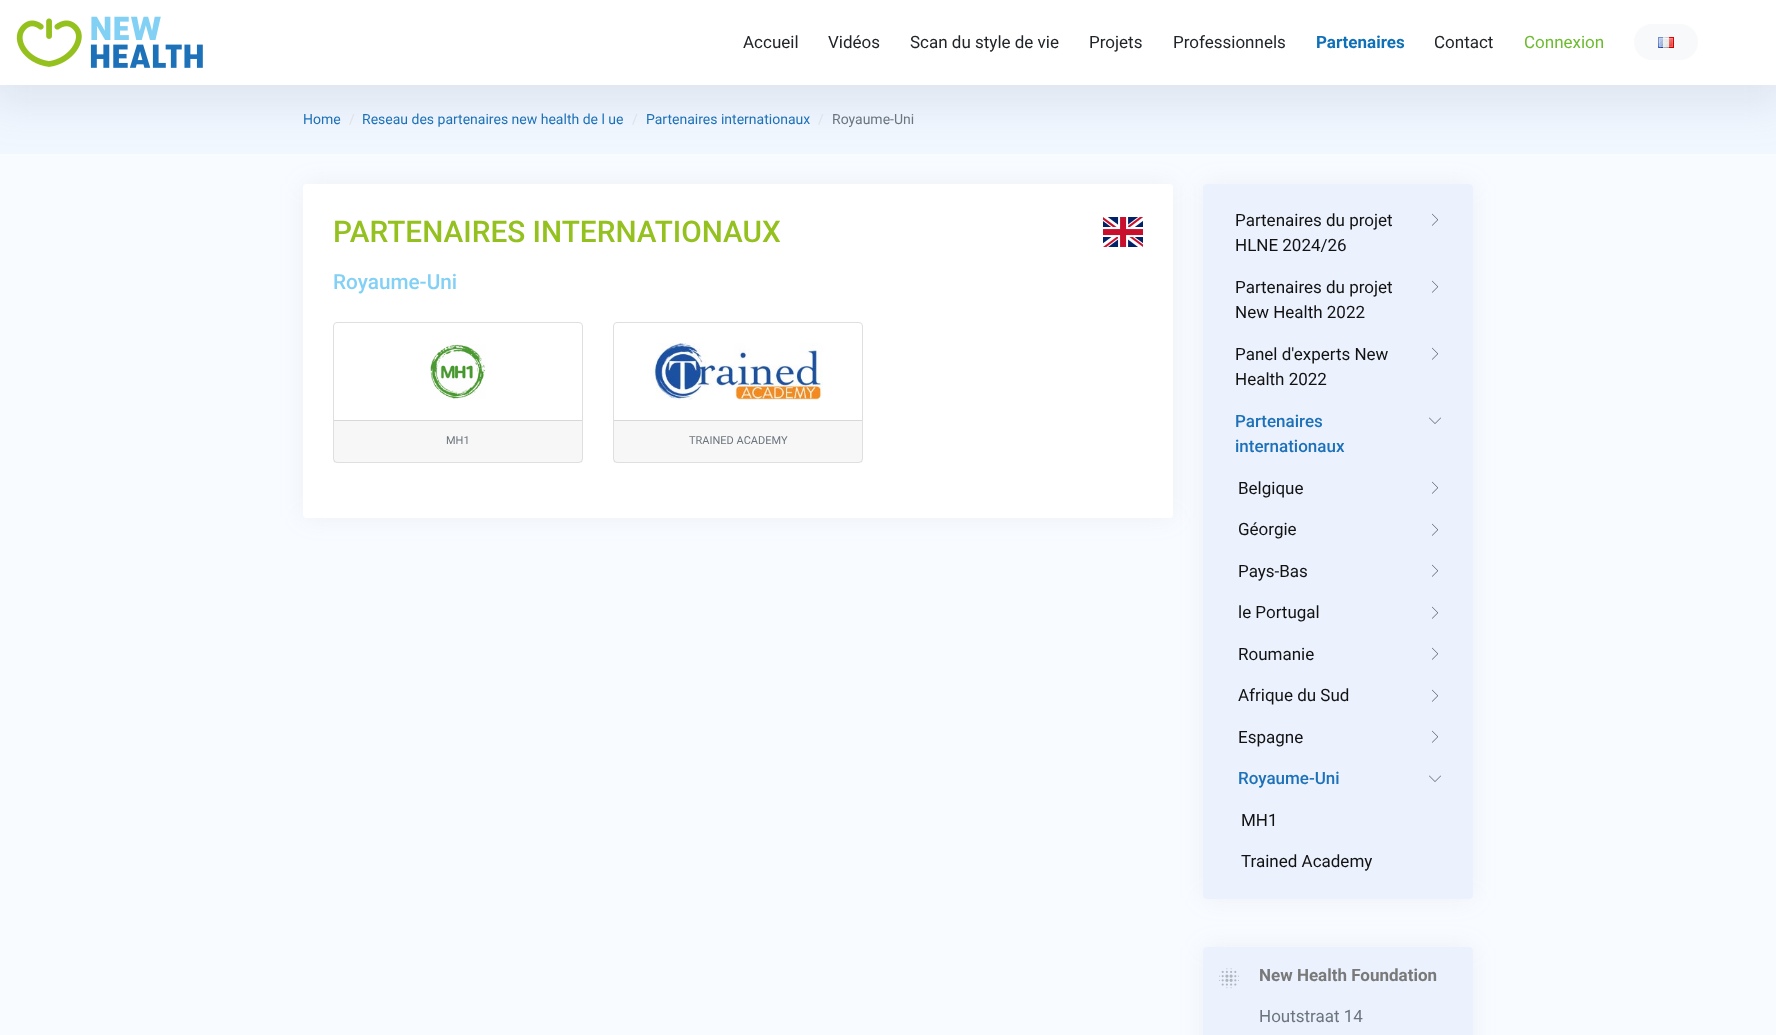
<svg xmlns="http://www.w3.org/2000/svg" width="1776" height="1035">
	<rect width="100%" height="100%" fill="#F8FBFF" />
	<rect x="0" y="85" width="1776" height="69" fill="#F1F7FF" />
	<rect x="-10" y="0" width="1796" height="105" fill="#8C98A4" fill-opacity="0.18" filter="blur(20px)" />
	<rect x="0" y="0" width="1776" height="85" fill="#FFFFFF" />
	<image x="16" y="16" width="187" height="52" href="assets/img1.png" />
	<g font-family="Roboto" font-size="17" fill="#212529">
		<text x="743" y="48">Accueil</text>
		<text x="828" y="48">Vidéos</text>
		<text x="910" y="48">Scan du style de vie</text>
		<text x="1089" y="48">Projets</text>
		<text x="1173" y="48">Professionnels</text>
	</g>
	<text x="1316" y="48" font-family="Roboto" font-size="17" font-weight="700" fill="#0F70B7">Partenaires</text>
	<text x="1434" y="48" font-family="Roboto" font-size="17" fill="#212529">Contact</text>
	<text x="1524" y="48" font-family="Roboto" font-size="17" fill="#6DBB30">Connexion</text>
	<rect x="1634" y="24" width="64" height="36" rx="18" fill="#F8F9FA" />
	<image x="1658" y="37" width="16" height="11" href="assets/img2.png" />
	<text x="303" y="124" font-family="Roboto" font-size="14" fill="#1D71B8">Home</text>
	<text x="349" y="124" font-family="Roboto" font-size="14" fill="#DEE2E6">/</text>
	<text x="362" y="124" font-family="Roboto" font-size="14" fill="#1D71B8">Reseau des partenaires new health de l ue</text>
	<text x="632" y="124" font-family="Roboto" font-size="14" fill="#DEE2E6">/</text>
	<text x="646" y="124" font-family="Roboto" font-size="14" fill="#1D71B8">Partenaires internationaux</text>
	<text x="818" y="124" font-family="Roboto" font-size="14" fill="#DEE2E6">/</text>
	<text x="832" y="124" font-family="Roboto" font-size="14" fill="#6C757D">Royaume-Uni</text>
	<rect x="303" y="184" width="870" height="334" rx="4" fill="#8C98A4" fill-opacity="0.1" filter="blur(12.5px)" />
	<rect x="303" y="184" width="870" height="334" rx="4" fill="#FFFFFF" />
	<text x="333" y="242" font-family="Roboto" font-size="29.75" font-weight="500" fill="#94C11F">PARTENAIRES INTERNATIONAUX</text>
	<image x="1103" y="217" width="40" height="30" href="assets/img3.png" />
	<text x="333" y="289" font-family="Roboto" font-size="20.75" font-weight="500" fill="#82D0F5">Royaume-Uni</text>
	<rect x="333.5" y="322.5" width="249" height="140" rx="3.5" fill="none" stroke="#DFDFDF" />
	<image x="430" y="344" width="56" height="55" href="assets/img4.png" />
	<rect x="334" y="421" width="248" height="41" fill="#000000" fill-opacity="0.03" />
	<rect x="334" y="420" width="248" height="1" fill="#D8D8D8" />
	<text x="446" y="444" font-family="Roboto" font-size="11" fill="#6C757D">MH1</text>
	<rect x="613.5" y="322.5" width="249" height="140" rx="3.5" fill="none" stroke="#DFDFDF" />
	<image x="647" y="343" width="176" height="57" href="assets/img5.png" />
	<rect x="614" y="421" width="248" height="41" fill="#000000" fill-opacity="0.03" />
	<rect x="614" y="420" width="248" height="1" fill="#D8D8D8" />
	<text x="689" y="444" font-family="Roboto" font-size="11" fill="#6C757D">TRAINED ACADEMY</text>
	<rect x="1203" y="184" width="270" height="715" rx="4" fill="#8C98A4" fill-opacity="0.1" filter="blur(12.5px)" />
	<rect x="1203" y="184" width="270" height="715" rx="4" fill="#EBF2FE" />
	<text x="1235" y="226" font-family="Roboto" font-size="17" fill="#121212">Partenaires du projet</text>
	<image x="1432" y="213" width="6" height="13" href="assets/img6.png" />
	<g font-family="Roboto" font-size="17" fill="#121212">
		<text x="1235" y="251">HLNE 2024/26</text>
		<text x="1235" y="293">Partenaires du projet</text>
	</g>
	<image x="1432" y="280" width="6" height="13" href="assets/img6.png" />
	<g font-family="Roboto" font-size="17" fill="#121212">
		<text x="1235" y="318">New Health 2022</text>
		<text x="1235" y="360">Panel d'experts New</text>
	</g>
	<image x="1432" y="347" width="6" height="13" href="assets/img6.png" />
	<text x="1235" y="385" font-family="Roboto" font-size="17" fill="#121212">Health 2022</text>
	<text x="1235" y="427" font-family="Roboto" font-size="17" font-weight="500" fill="#1D71B8">Partenaires</text>
	<image x="1429" y="417" width="12" height="7" href="assets/img7.png" />
	<text x="1235" y="452" font-family="Roboto" font-size="17" font-weight="500" fill="#1D71B8">internationaux</text>
	<text x="1238" y="494" font-family="Roboto" font-size="17" fill="#121212">Belgique</text>
	<image x="1432" y="481" width="6" height="13" href="assets/img6.png" />
	<text x="1238" y="535" font-family="Roboto" font-size="17" fill="#121212">Géorgie</text>
	<image x="1432" y="523" width="6" height="13" href="assets/img6.png" />
	<text x="1238" y="577" font-family="Roboto" font-size="17" fill="#121212">Pays-Bas</text>
	<image x="1432" y="564" width="6" height="13" href="assets/img6.png" />
	<text x="1238" y="618" font-family="Roboto" font-size="17" fill="#121212">le Portugal</text>
	<image x="1432" y="606" width="6" height="13" href="assets/img6.png" />
	<text x="1238" y="660" font-family="Roboto" font-size="17" fill="#121212">Roumanie</text>
	<image x="1432" y="647" width="6" height="13" href="assets/img6.png" />
	<text x="1238" y="701" font-family="Roboto" font-size="17" fill="#121212">Afrique du Sud</text>
	<image x="1432" y="689" width="6" height="13" href="assets/img6.png" />
	<text x="1238" y="743" font-family="Roboto" font-size="17" fill="#121212">Espagne</text>
	<image x="1432" y="730" width="6" height="13" href="assets/img6.png" />
	<text x="1238" y="784" font-family="Roboto" font-size="17" font-weight="500" fill="#1D71B8">Royaume-Uni</text>
	<image x="1429" y="775" width="12" height="7" href="assets/img7.png" />
	<g font-family="Roboto" font-size="17" fill="#121212">
		<text x="1241" y="826">MH1</text>
		<text x="1241" y="867">Trained Academy</text>
	</g>
	<rect x="1203" y="947" width="270" height="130" rx="4" fill="#8C98A4" fill-opacity="0.1" filter="blur(12.5px)" />
	<rect x="1203" y="947" width="270" height="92" rx="4" fill="#EBF2FE" />
	<image x="1219" y="968" width="20" height="21" href="assets/img8.png" />
	<text x="1259" y="981" font-family="Roboto" font-size="17" font-weight="700" fill="#797979">New Health Foundation</text>
	<text x="1259" y="1022" font-family="Roboto" font-size="17" fill="#6C757D">Houtstraat 14</text>
</svg>
